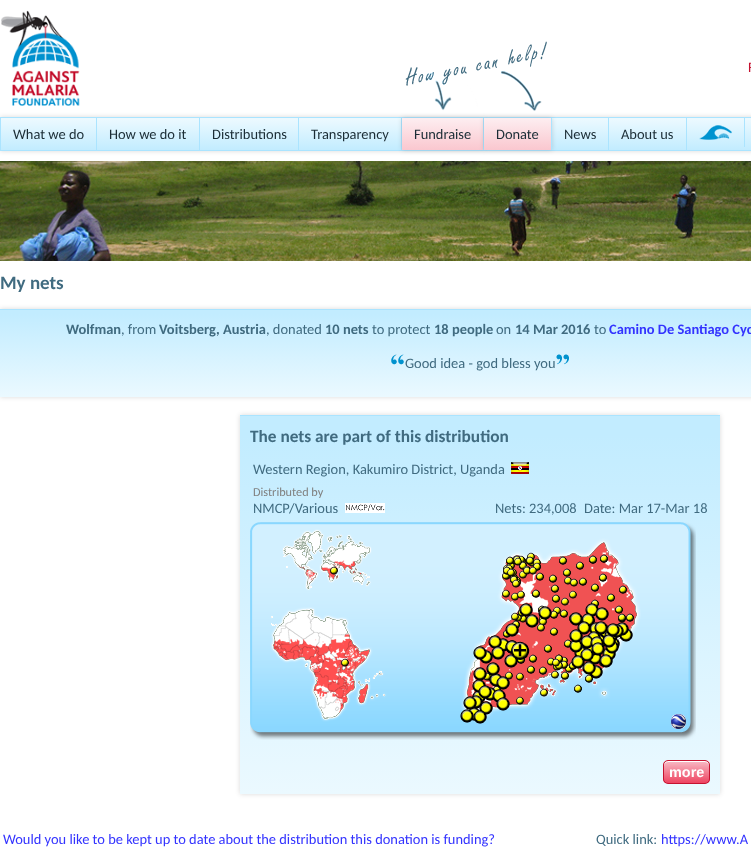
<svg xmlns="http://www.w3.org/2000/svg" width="751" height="858">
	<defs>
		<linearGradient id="g1" gradientUnits="userSpaceOnUse" x1="1" y1="118" x2="1" y2="150"><stop offset="0.05" stop-color="#EBF9FF" /><stop offset="1" stop-color="#C2ECFF" /></linearGradient>
		<linearGradient id="g2" gradientUnits="userSpaceOnUse" x1="402" y1="118" x2="402" y2="150"><stop offset="0.05" stop-color="#FDECEF" /><stop offset="1" stop-color="#FAC7CF" /></linearGradient>
		<linearGradient id="g3" gradientUnits="userSpaceOnUse" x1="484" y1="118" x2="484" y2="150"><stop offset="0.05" stop-color="#FDECEF" /><stop offset="1" stop-color="#FAC7CF" /></linearGradient>
		<linearGradient id="g4" gradientUnits="userSpaceOnUse" x1="0" y1="310" x2="0" y2="397"><stop offset="0.05" stop-color="#C2ECFF" /><stop offset="1" stop-color="#EBF9FF" /></linearGradient>
		<linearGradient id="g5" gradientUnits="userSpaceOnUse" x1="240" y1="416" x2="240" y2="794"><stop offset="0.05" stop-color="#C2ECFF" /><stop offset="1" stop-color="#EBF9FF" /></linearGradient>
		<clipPath id="clip1"><rect x="663" y="760" width="47" height="24" rx="5" /></clipPath>
		<linearGradient id="g6" gradientUnits="userSpaceOnUse" x1="664" y1="761" x2="664" y2="783"><stop offset="0.05" stop-color="#F8B4C0" /><stop offset="1" stop-color="#EE4461" /></linearGradient>
	</defs>
	<rect width="100%" height="100%" fill="#FFFFFF" />
	<image x="1" y="10" width="79" height="96" href="assets/img1.png" />
	<text x="748" y="72" font-family="Carlito" font-size="14.45" fill="#C51230">F</text>
	<rect x="0" y="117" width="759" height="34" fill="#000000" fill-opacity="0.15" filter="blur(2.5px)" />
	<rect x="1" y="118" width="750" height="32" fill="url(#g1)" />
	<rect x="0.5" y="117.5" width="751" height="33" fill="none" stroke="#ABE4FF" />
	<rect x="401" y="118" width="1" height="32" fill="#ABE4FF" />
	<rect x="402" y="118" width="82" height="32" fill="#000000" fill-opacity="0.15" filter="blur(2.5px)" />
	<rect x="402" y="118" width="81" height="32" fill="url(#g2)" />
	<rect x="483" y="118" width="1" height="32" fill="#ABE4FF" />
	<rect x="484" y="118" width="68" height="32" fill="#000000" fill-opacity="0.15" filter="blur(2.5px)" />
	<image x="405" y="41" width="142" height="70" href="assets/img2.png" />
	<rect x="96" y="118" width="1" height="32" fill="#ABE4FF" />
	<text x="13" y="139" font-family="Carlito" font-size="14.45" fill="#1B2D36">What we do</text>
	<rect x="199" y="118" width="1" height="32" fill="#ABE4FF" />
	<text x="109" y="139" font-family="Carlito" font-size="14.45" fill="#1B2D36">How we do it</text>
	<rect x="298" y="118" width="1" height="32" fill="#ABE4FF" />
	<g font-family="Carlito" font-size="14.45" fill="#1B2D36">
		<text x="212" y="139">Distributions</text>
		<text x="311" y="139">Transparency</text>
		<text x="414" y="139">Fundraise</text>
	</g>
	<rect x="484" y="118" width="67" height="32" fill="url(#g3)" />
	<rect x="551" y="118" width="1" height="32" fill="#ABE4FF" />
	<text x="496" y="139" font-family="Carlito" font-size="14.45" fill="#1B2D36">Donate</text>
	<rect x="608" y="118" width="1" height="32" fill="#ABE4FF" />
	<text x="564" y="139" font-family="Carlito" font-size="14.45" fill="#1B2D36">News</text>
	<rect x="686" y="118" width="1" height="32" fill="#ABE4FF" />
	<text x="621" y="139" font-family="Carlito" font-size="14.45" fill="#1B2D36">About us</text>
	<rect x="744" y="118" width="1" height="29" fill="#ABE4FF" />
	<image x="699" y="125" width="33" height="15" href="assets/img3.png" />
	<image x="0" y="161" width="751" height="100" href="assets/img4.png" />
	<text x="0" y="289" font-family="Carlito" font-size="19" font-weight="700" fill="#406B80">My nets</text>
	<rect x="0" y="309" width="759" height="88" fill="#000000" fill-opacity="0.15" filter="blur(2.5px)" />
	<rect x="0" y="310" width="751" height="87" fill="url(#g4)" />
	<rect x="0" y="309" width="751" height="1" fill="#ABE4FF" />
	<text x="66" y="334" font-family="Carlito" font-size="14.45" font-weight="700" fill="#406B80">Wolfman</text>
	<text x="121" y="334" font-family="Carlito" font-size="14.45" fill="#406B80">, from</text>
	<text x="159" y="334" font-family="Carlito" font-size="14.45" font-weight="700" fill="#406B80">Voitsberg, Austria</text>
	<text x="266" y="334" font-family="Carlito" font-size="14.45" fill="#406B80">, donated</text>
	<text x="325" y="334" font-family="Carlito" font-size="14.45" font-weight="700" fill="#406B80">10 nets</text>
	<text x="372" y="334" font-family="Carlito" font-size="14.45" fill="#406B80">to protect</text>
	<text x="434" y="334" font-family="Carlito" font-size="14.45" font-weight="700" fill="#406B80">18 people</text>
	<text x="496" y="334" font-family="Carlito" font-size="14.45" fill="#406B80">on</text>
	<text x="515" y="334" font-family="Carlito" font-size="14.45" font-weight="700" fill="#406B80">14 Mar 2016</text>
	<text x="594" y="334" font-family="Carlito" font-size="14.45" fill="#406B80">to</text>
	<text x="609" y="334" font-family="Carlito" font-size="14.45" font-weight="700" fill="#3333FF">Camino De Santiago Cyc</text>
	<image x="391" y="354" width="13" height="11" href="assets/img5.png" />
	<text x="405" y="368" font-family="Carlito" font-size="14.45" fill="#406B80">Good idea - god bless you</text>
	<image x="556" y="354" width="13" height="11" href="assets/img6.png" />
	<rect x="240" y="415" width="480" height="379" fill="#000000" fill-opacity="0.15" filter="blur(2.5px)" />
	<rect x="240" y="416" width="480" height="378" fill="url(#g5)" />
	<rect x="240" y="415" width="480" height="1" fill="#ABE4FF" />
	<text x="250" y="442" font-family="Carlito" font-size="17.3" font-weight="700" fill="#406B80">The nets are part of this distribution</text>
	<text x="253" y="474" font-family="Carlito" font-size="14.45" fill="#406B80">Western Region, Kakumiro District, Uganda</text>
	<image x="511" y="462" width="18" height="12" href="assets/img7.png" />
	<text x="253" y="496" font-family="Carlito" font-size="12.25" fill="#808080">Distributed by</text>
	<text x="253" y="513" font-family="Carlito" font-size="14.45" fill="#406B80">NMCP/Various</text>
	<image x="345" y="503" width="40" height="10" href="assets/img8.png" />
	<g font-family="Carlito" font-size="14.45" fill="#406B80">
		<text x="495" y="513">Nets: 234,008</text>
		<text x="584" y="513">Date: Mar 17-Mar 18</text>
	</g>
	<image x="250" y="522" width="446" height="218" href="assets/img9.png" />
	<g clip-path="url(#clip1)">
		<rect x="663" y="761" width="47" height="22" fill="url(#g6)" />
	</g>
	<path d="M668 762H705C707 762 709 764 709 766C709 760 704 761 699 761H674C669 761 664 760 664 766C664 764 666 762 668 762Z" fill="#FFFFFF" />
	<rect x="663.5" y="760.5" width="46" height="23" rx="4.5" fill="none" stroke="#C51230" />
	<text x="669" y="777" font-family="Liberation Sans" font-size="14.45" font-weight="700" fill="#FFFFFF">more</text>
	<text x="3" y="844" font-family="Carlito" font-size="14.45" fill="#3333FF">Would you like to be kept up to date about the distribution this donation is funding?</text>
	<text x="596" y="844" font-family="Carlito" font-size="14.45" fill="#406B80">Quick link:</text>
	<text x="661" y="844" font-family="Carlito" font-size="14.45" fill="#3333FF">https://www.A</text>
</svg>
